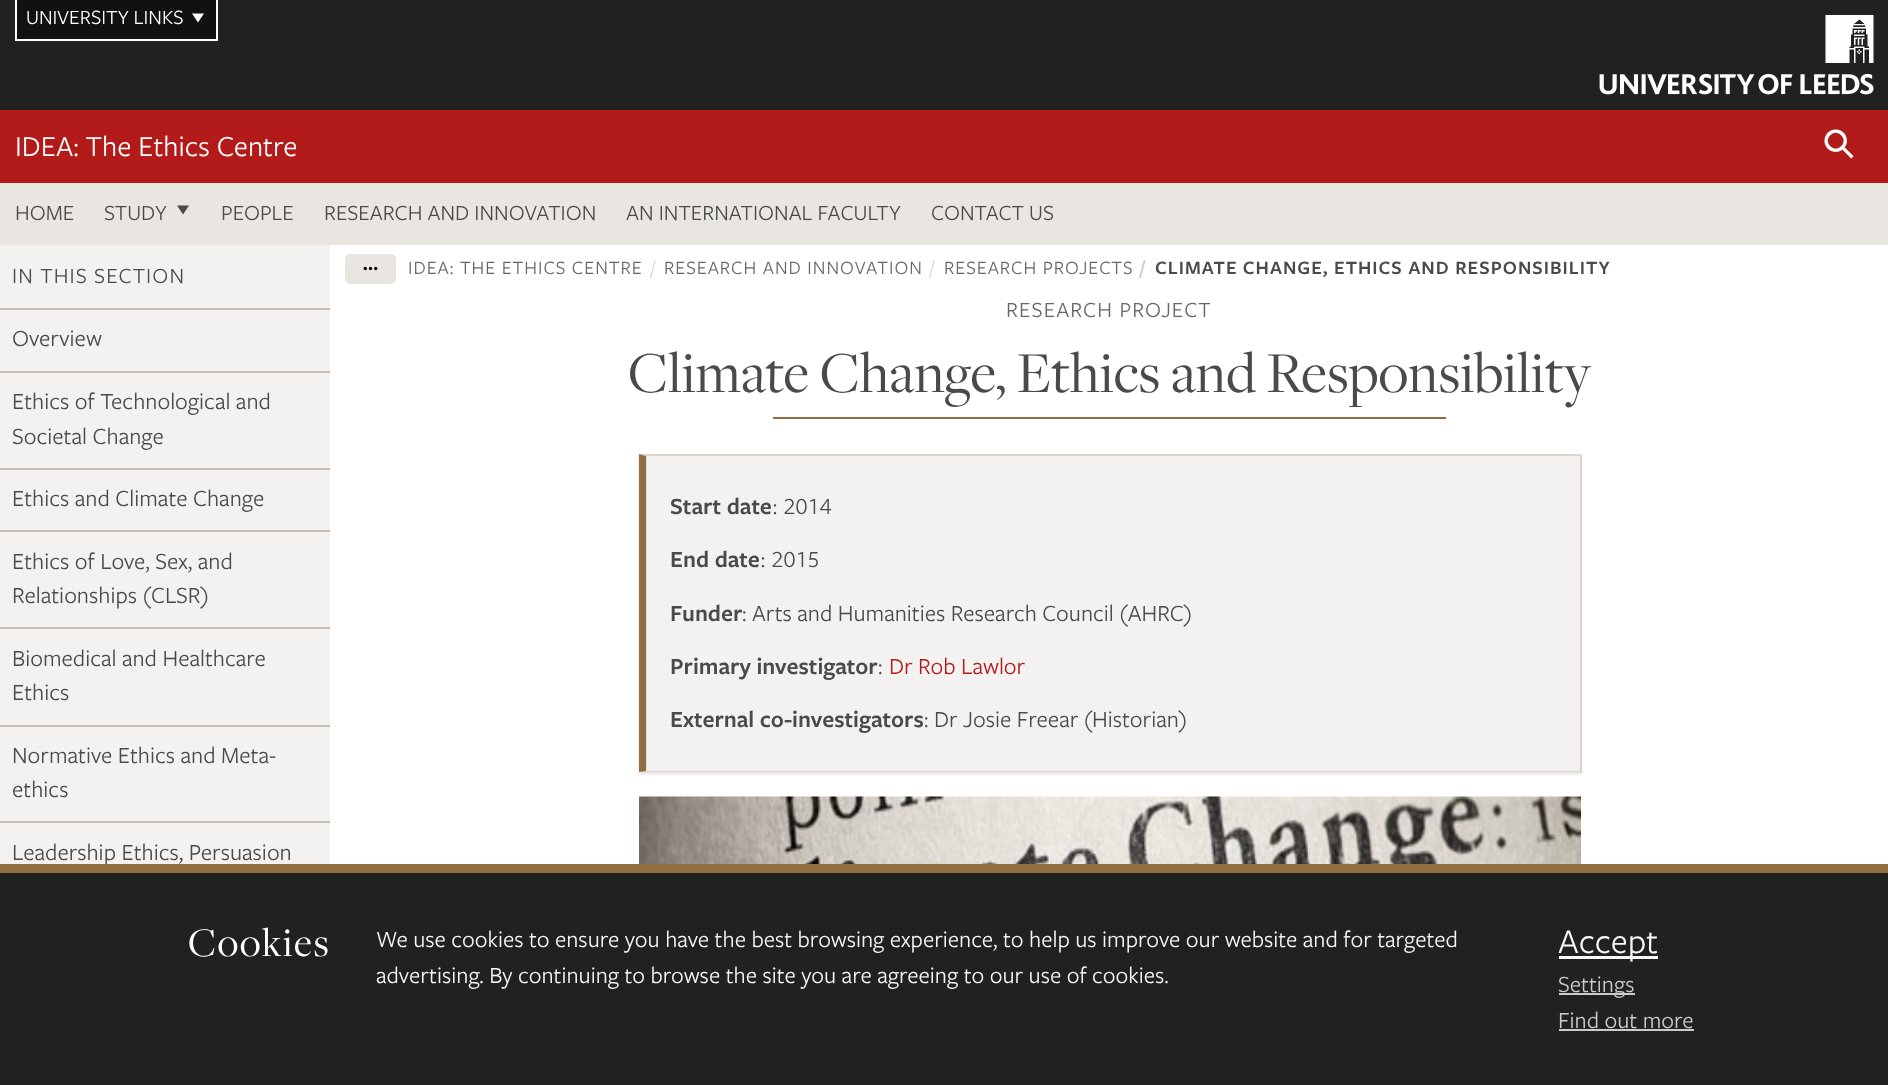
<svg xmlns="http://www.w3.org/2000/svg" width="1888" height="1085">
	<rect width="100%" height="100%" fill="#FFFFFF" />
	<rect x="0" y="0" width="1888" height="110" fill="#212121" />
	<image x="1599" y="15" width="275" height="80" href="assets/img1.png" />
	<rect x="17" y="0" width="199" height="39" fill="#111111" />
	<rect x="216" y="0" width="2" height="41" fill="#FFFFFF" />
	<rect x="15" y="39" width="203" height="2" fill="#FFFFFF" />
	<rect x="15" y="0" width="2" height="41" fill="#FFFFFF" />
	<text x="26" y="24" font-family="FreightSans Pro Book" font-size="21" fill="#FFFFFF">UNIVERSITY LINKS</text>
	<path d="M204 13.5L198 22.5L192 13.5Z" fill="#FFFFFF" />
	<rect x="0" y="110" width="1888" height="73" fill="#B31B1B" />
	<text x="15" y="156" font-family="FreightSans Pro Book" font-size="30" fill="#FFFFFF">IDEA: The Ethics Centre</text>
	<image x="1824" y="129" width="30" height="30" href="assets/img2.png" />
	<rect x="0" y="183" width="1888" height="62" fill="#E9E5E1" />
	<g font-family="FreightSans Pro Book" font-size="22.5" fill="#4A4A4A">
		<text x="15" y="220">HOME</text>
		<text x="104" y="220">STUDY</text>
	</g>
	<path d="M189 205.5L183 214.5L177 205.5Z" fill="#4A4A4A" />
	<g font-family="FreightSans Pro Book" font-size="22.5" fill="#4A4A4A">
		<text x="221" y="220">PEOPLE</text>
		<text x="324" y="220">RESEARCH AND INNOVATION</text>
		<text x="626" y="220">AN INTERNATIONAL FACULTY</text>
		<text x="931" y="220">CONTACT US</text>
	</g>
	<rect x="0" y="245" width="330" height="619" fill="#F4F2F0" />
	<rect x="0" y="308" width="330" height="2" fill="#C9BFB5" />
	<text x="12" y="283" font-family="FreightSans Pro Book" font-size="22.5" letter-spacing="1.1" fill="#4A4A4A">IN THIS SECTION</text>
	<rect x="0" y="371" width="330" height="2" fill="#C9BFB5" />
	<text x="12" y="346" font-family="FreightSans Pro Book" font-size="24" fill="#4A4A4A">Overview</text>
	<rect x="0" y="468" width="330" height="2" fill="#C9BFB5" />
	<g font-family="FreightSans Pro Book" font-size="24" fill="#4A4A4A">
		<text x="12" y="409">Ethics of Technological and</text>
		<text x="12" y="444">Societal Change</text>
	</g>
	<rect x="0" y="530" width="330" height="2" fill="#C9BFB5" />
	<text x="12" y="506" font-family="FreightSans Pro Book" font-size="24" fill="#4A4A4A">Ethics and Climate Change</text>
	<rect x="0" y="627" width="330" height="2" fill="#C9BFB5" />
	<g font-family="FreightSans Pro Book" font-size="24" fill="#4A4A4A">
		<text x="12" y="569">Ethics of Love, Sex, and</text>
		<text x="12" y="603">Relationships (CLSR)</text>
	</g>
	<rect x="0" y="725" width="330" height="2" fill="#C9BFB5" />
	<g font-family="FreightSans Pro Book" font-size="24" fill="#4A4A4A">
		<text x="12" y="666">Biomedical and Healthcare</text>
		<text x="12" y="700">Ethics</text>
	</g>
	<rect x="0" y="821" width="330" height="2" fill="#C9BFB5" />
	<g font-family="FreightSans Pro Book" font-size="24" fill="#4A4A4A">
		<text x="12" y="763">Normative Ethics and Meta-</text>
		<text x="12" y="797">ethics</text>
		<text x="12" y="860">Leadership Ethics, Persuasion</text>
	</g>
	<rect x="345" y="254" width="51" height="30" rx="5" fill="#E9E5E1" />
	<image x="363" y="266" width="15" height="5" href="assets/img3.png" />
	<text x="408" y="274" font-family="FreightSans Pro Book" font-size="19.5" letter-spacing="1" fill="#666666">IDEA: THE ETHICS CENTRE</text>
	<text x="651" y="274" font-family="FreightSans Pro Book" font-size="19.5" letter-spacing="1" fill="#CCCCCC">/</text>
	<text x="664" y="274" font-family="FreightSans Pro Book" font-size="19.5" letter-spacing="1" fill="#666666">RESEARCH AND INNOVATION</text>
	<text x="930" y="274" font-family="FreightSans Pro Book" font-size="19.5" letter-spacing="1" fill="#CCCCCC">/</text>
	<text x="944" y="274" font-family="FreightSans Pro Book" font-size="19.5" letter-spacing="1" fill="#666666">RESEARCH PROJECTS</text>
	<text x="1140" y="274" font-family="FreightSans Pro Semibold" font-size="19.5" font-weight="600" letter-spacing="1" fill="#CCCCCC">/</text>
	<text x="1155" y="274" font-family="FreightSans Pro Semibold" font-size="19.5" font-weight="600" letter-spacing="1" fill="#4A4A4A">CLIMATE CHANGE, ETHICS AND RESPONSIBILITY</text>
	<text x="1006" y="317" font-family="FreightSans Pro Book" font-size="22.5" letter-spacing="1.1" fill="#666666">RESEARCH PROJECT</text>
	<text x="628" y="392" font-family="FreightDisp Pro" font-size="60" fill="#4A4A4A">Climate Change, Ethics and Responsibility</text>
	<rect x="773" y="417" width="673" height="2" fill="#916F40" />
	<rect x="639" y="456" width="942" height="318" fill="#000000" fill-opacity="0.12" filter="blur(1.5px)" />
	<rect x="647" y="456" width="933" height="315" fill="#F4F2F0" />
	<path d="M639 454H1581L1580 456H646Z" fill="#DDD5CC" />
	<rect x="1580" y="455" width="2" height="318" fill="#DDD5CC" />
	<path d="M1581 772H639L646 771H1580Z" fill="#DDD5CC" />
	<path d="M639 772V454L646 456V771Z" fill="#916F40" />
	<text x="670" y="514" font-family="FreightSans Pro Semibold" font-size="24" font-weight="600" fill="#4A4A4A">Start date</text>
	<text x="772" y="514" font-family="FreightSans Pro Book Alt" font-size="24" fill="#4A4A4A">: 2014</text>
	<text x="670" y="567" font-family="FreightSans Pro Semibold" font-size="24" font-weight="600" fill="#4A4A4A">End date</text>
	<text x="760" y="567" font-family="FreightSans Pro Book Alt" font-size="24" fill="#4A4A4A">: 2015</text>
	<text x="670" y="621" font-family="FreightSans Pro Semibold" font-size="24" font-weight="600" fill="#4A4A4A">Funder</text>
	<text x="742" y="621" font-family="FreightSans Pro Book" font-size="24" fill="#4A4A4A">: Arts and Humanities Research Council (AHRC)</text>
	<text x="670" y="674" font-family="FreightSans Pro Semibold" font-size="24" font-weight="600" fill="#4A4A4A">Primary investigator</text>
	<text x="878" y="674" font-family="FreightSans Pro Book" font-size="24" fill="#4A4A4A">:</text>
	<text x="889" y="674" font-family="FreightSans Pro Book" font-size="24" fill="#B31B1B">Dr Rob Lawlor</text>
	<text x="670" y="727" font-family="FreightSans Pro Semibold" font-size="24" font-weight="600" fill="#4A4A4A">External co-investigators</text>
	<text x="924" y="727" font-family="FreightSans Pro Book" font-size="24" fill="#4A4A4A">: Dr Josie Freear (Historian)</text>
	<image x="639" y="796" width="942" height="68" href="assets/img4.png" />
	<rect x="0" y="873" width="1888" height="212" fill="#212121" />
	<rect x="0" y="864" width="1888" height="9" fill="#916F40" />
	<text x="188" y="956" font-family="FreightDisp Pro" font-size="42" letter-spacing="1.5" fill="#FFFFFF">Cookies</text>
	<g font-family="FreightSans Pro Book" font-size="24" fill="#F7F7F7">
		<text x="376" y="947">We use cookies to ensure you have the best browsing experience, to help us improve our website and for targeted</text>
		<text x="376" y="983">advertising. By continuing to browse the site you are agreeing to our use of cookies.</text>
	</g>
	<rect x="1559" y="956" width="99" height="3" fill="#F7F7F7" />
	<text x="1558" y="953" font-family="FreightSans Pro Book" font-size="36" fill="#F7F7F7">Accept</text>
	<rect x="1559" y="993" width="76" height="2" fill="#CCCCCC" />
	<g font-family="FreightSans Pro Book" font-size="24" fill="#CCCCCC">
		<text x="1558" y="992">Settings</text>
		<text x="1558" y="1028">Find out more</text>
	</g>
	<rect x="1559" y="1029" width="135" height="2" fill="#CCCCCC" />
</svg>
